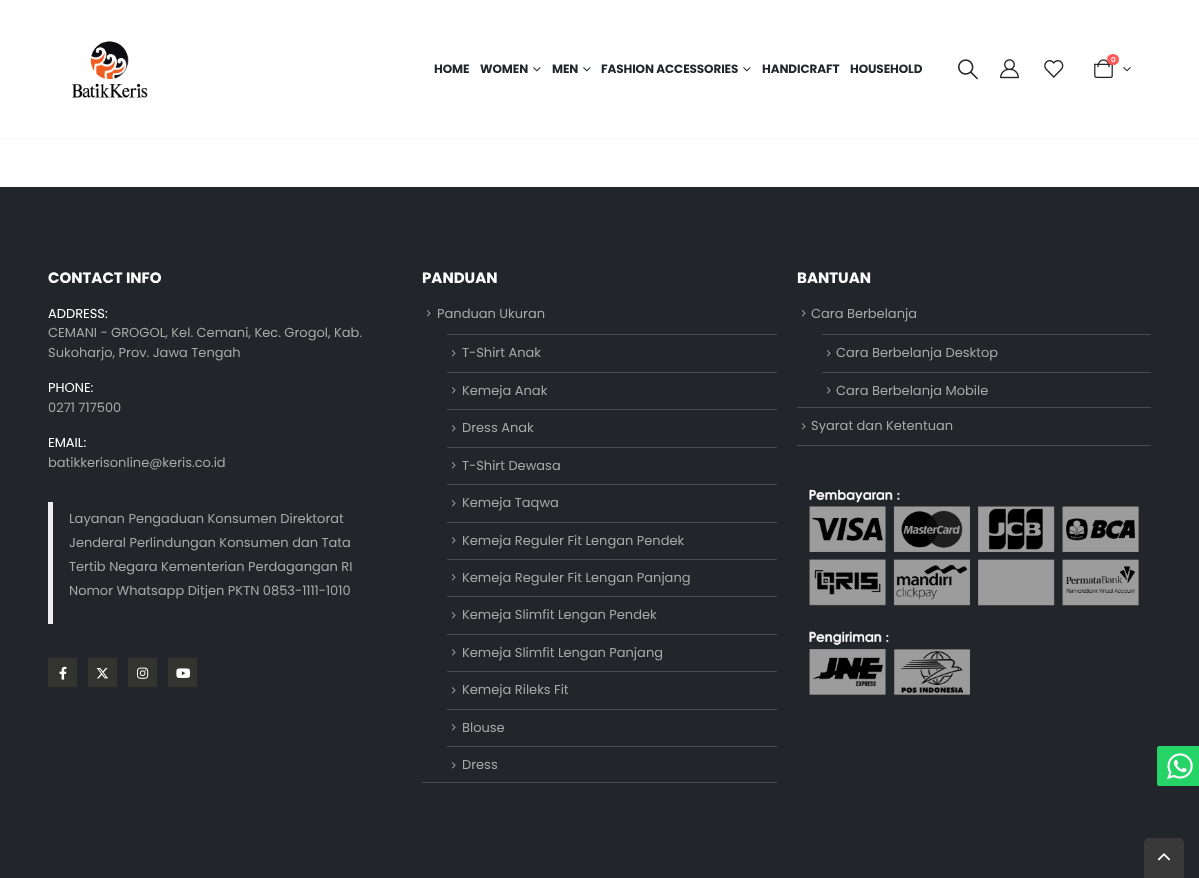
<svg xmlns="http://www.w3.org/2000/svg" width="1199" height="878">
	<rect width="100%" height="100%" fill="#FFFFFF" />
	<rect x="0" y="0" width="1199" height="138" fill="#000000" fill-opacity="0.06" filter="blur(1.5px)" />
	<rect x="0" y="0" width="1199" height="138" fill="#FFFFFF" />
	<image x="71" y="41" width="77" height="57" href="assets/img1.png" />
	<g font-family="Poppins" font-size="12" font-weight="700" letter-spacing="-0.1" fill="#222529">
		<text x="434" y="73">HOME</text>
		<text x="480" y="73">WOMEN</text>
	</g>
	<image x="533" y="67" width="8" height="5" href="assets/img2.png" />
	<text x="552" y="73" font-family="Poppins" font-size="12" font-weight="700" letter-spacing="-0.1" fill="#222529">MEN</text>
	<image x="583" y="67" width="8" height="5" href="assets/img2.png" />
	<text x="601" y="73" font-family="Poppins" font-size="12" font-weight="700" letter-spacing="-0.1" fill="#222529">FASHION ACCESSORIES</text>
	<image x="743" y="67" width="8" height="5" href="assets/img2.png" />
	<g font-family="Poppins" font-size="12" font-weight="700" letter-spacing="-0.1" fill="#222529">
		<text x="762" y="73">HANDICRAFT</text>
		<text x="850" y="73">HOUSEHOLD</text>
	</g>
	<image x="958" y="59" width="20" height="21" href="assets/img3.png" />
	<image x="1000" y="59" width="19" height="20" href="assets/img4.png" />
	<image x="1044" y="60" width="20" height="18" href="assets/img5.png" />
	<image x="1094" y="59" width="19" height="20" href="assets/img6.png" />
	<rect x="1107" y="54" width="12" height="11" rx="5.5" fill="#FF5B5B" />
	<text x="1111" y="62" font-family="Inter" font-size="7" font-weight="600" fill="#FFFFFF">0</text>
	<image x="1123" y="67" width="8" height="5" href="assets/img7.png" />
	<rect x="0" y="187" width="1199" height="691" fill="#222529" />
	<text x="48" y="283" font-family="Poppins" font-size="15" font-weight="700" fill="#FFFFFF">CONTACT INFO</text>
	<text x="48" y="318" font-family="Poppins" font-size="13" fill="#FFFFFF">ADDRESS:</text>
	<g font-family="Poppins" font-size="13" fill="#A8A8A8">
		<text x="48" y="337">CEMANI - GROGOL, Kel. Cemani, Kec. Grogol, Kab.</text>
		<text x="48" y="357">Sukoharjo, Prov. Jawa Tengah</text>
	</g>
	<text x="48" y="392" font-family="Poppins" font-size="13" fill="#FFFFFF">PHONE:</text>
	<text x="48" y="412" font-family="Poppins" font-size="13" fill="#A8A8A8">0271 717500</text>
	<text x="48" y="447" font-family="Poppins" font-size="13" fill="#FFFFFF">EMAIL:</text>
	<text x="48" y="467" font-family="Poppins" font-size="13" fill="#A8A8A8">batikkerisonline@keris.co.id</text>
	<rect x="48" y="502" width="5" height="122" fill="#EEEEEE" />
	<g font-family="Poppins" font-size="13" fill="#A8A8A8">
		<text x="69" y="523">Layanan Pengaduan Konsumen Direktorat</text>
		<text x="69" y="547">Jenderal Perlindungan Konsumen dan Tata</text>
		<text x="69" y="571">Tertib Negara Kementerian Perdagangan RI</text>
		<text x="69" y="595">Nomor Whatsapp Ditjen PKTN 0853-1111-1010</text>
	</g>
	<rect x="48" y="658" width="29" height="29" fill="#33332F" />
	<image x="59" y="666" width="8" height="14" href="assets/img8.png" />
	<rect x="88" y="658" width="29" height="29" fill="#33332F" />
	<image x="96" y="668" width="12" height="11" href="assets/img9.png" />
	<rect x="128" y="658" width="29" height="29" fill="#33332F" />
	<image x="137" y="667" width="12" height="12" href="assets/img10.png" />
	<rect x="168" y="658" width="29" height="29" fill="#33332F" />
	<image x="176" y="668" width="15" height="10" href="assets/img11.png" />
	<text x="422" y="283" font-family="Poppins" font-size="15" font-weight="700" fill="#FFFFFF">PANDUAN</text>
	<rect x="422" y="782" width="355" height="1" fill="#4A4C4F" />
	<image x="427" y="310" width="4" height="7" href="assets/img12.png" />
	<text x="437" y="318" font-family="Poppins" font-size="13" fill="#A8A8A8">Panduan Ukuran</text>
	<rect x="447" y="334" width="330" height="1" fill="#4A4C4F" />
	<image x="452" y="350" width="4" height="7" href="assets/img12.png" />
	<text x="462" y="357" font-family="Poppins" font-size="13" fill="#A8A8A8">T-Shirt Anak</text>
	<rect x="447" y="372" width="330" height="1" fill="#4A4C4F" />
	<image x="452" y="387" width="4" height="7" href="assets/img12.png" />
	<text x="462" y="395" font-family="Poppins" font-size="13" fill="#A8A8A8">Kemeja Anak</text>
	<rect x="447" y="409" width="330" height="1" fill="#4A4C4F" />
	<image x="452" y="425" width="4" height="7" href="assets/img12.png" />
	<text x="462" y="432" font-family="Poppins" font-size="13" fill="#A8A8A8">Dress Anak</text>
	<rect x="447" y="447" width="330" height="1" fill="#4A4C4F" />
	<image x="452" y="462" width="4" height="7" href="assets/img12.png" />
	<text x="462" y="470" font-family="Poppins" font-size="13" fill="#A8A8A8">T-Shirt Dewasa</text>
	<rect x="447" y="484" width="330" height="1" fill="#4A4C4F" />
	<image x="452" y="500" width="4" height="7" href="assets/img12.png" />
	<text x="462" y="507" font-family="Poppins" font-size="13" fill="#A8A8A8">Kemeja Taqwa</text>
	<rect x="447" y="522" width="330" height="1" fill="#4A4C4F" />
	<image x="452" y="537" width="4" height="7" href="assets/img12.png" />
	<text x="462" y="545" font-family="Poppins" font-size="13" fill="#A8A8A8">Kemeja Reguler Fit Lengan Pendek</text>
	<rect x="447" y="559" width="330" height="1" fill="#4A4C4F" />
	<image x="452" y="574" width="4" height="7" href="assets/img12.png" />
	<text x="462" y="582" font-family="Poppins" font-size="13" fill="#A8A8A8">Kemeja Reguler Fit Lengan Panjang</text>
	<rect x="447" y="596" width="330" height="1" fill="#4A4C4F" />
	<image x="452" y="612" width="4" height="7" href="assets/img12.png" />
	<text x="462" y="619" font-family="Poppins" font-size="13" fill="#A8A8A8">Kemeja Slimfit Lengan Pendek</text>
	<rect x="447" y="634" width="330" height="1" fill="#4A4C4F" />
	<image x="452" y="649" width="4" height="7" href="assets/img12.png" />
	<text x="462" y="657" font-family="Poppins" font-size="13" fill="#A8A8A8">Kemeja Slimfit Lengan Panjang</text>
	<rect x="447" y="671" width="330" height="1" fill="#4A4C4F" />
	<image x="452" y="687" width="4" height="7" href="assets/img12.png" />
	<text x="462" y="694" font-family="Poppins" font-size="13" fill="#A8A8A8">Kemeja Rileks Fit</text>
	<rect x="447" y="709" width="330" height="1" fill="#4A4C4F" />
	<image x="452" y="724" width="4" height="7" href="assets/img12.png" />
	<text x="462" y="732" font-family="Poppins" font-size="13" fill="#A8A8A8">Blouse</text>
	<rect x="447" y="746" width="330" height="1" fill="#4A4C4F" />
	<image x="452" y="762" width="4" height="7" href="assets/img12.png" />
	<text x="462" y="769" font-family="Poppins" font-size="13" fill="#A8A8A8">Dress</text>
	<text x="797" y="283" font-family="Poppins" font-size="15" font-weight="700" fill="#FFFFFF">BANTUAN</text>
	<rect x="797" y="445" width="354" height="1" fill="#4A4C4F" />
	<image x="802" y="310" width="4" height="7" href="assets/img12.png" />
	<text x="811" y="318" font-family="Poppins" font-size="13" fill="#A8A8A8">Cara Berbelanja</text>
	<rect x="822" y="334" width="329" height="1" fill="#4A4C4F" />
	<image x="827" y="350" width="4" height="7" href="assets/img12.png" />
	<text x="836" y="357" font-family="Poppins" font-size="13" fill="#A8A8A8">Cara Berbelanja Desktop</text>
	<rect x="822" y="372" width="329" height="1" fill="#4A4C4F" />
	<image x="827" y="387" width="4" height="7" href="assets/img12.png" />
	<text x="836" y="395" font-family="Poppins" font-size="13" fill="#A8A8A8">Cara Berbelanja Mobile</text>
	<rect x="797" y="407" width="354" height="1" fill="#4A4C4F" />
	<image x="802" y="423" width="4" height="7" href="assets/img12.png" />
	<text x="811" y="430" font-family="Poppins" font-size="13" fill="#A8A8A8">Syarat dan Ketentuan</text>
	<image x="809" y="489" width="330" height="206" href="assets/img13.png" />
	<path d="M1159 746H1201V786H1159C1158 786 1157 785 1157 784V748C1157 747 1158 746 1159 746Z" fill="#25D366" />
	<image x="1167" y="753" width="26" height="27" href="assets/img14.png" />
	<path d="M1149 838H1179C1182 838 1184 840 1184 843V878H1144V843C1144 840 1146 838 1149 838Z" fill="#39393A" />
	<image x="1157" y="853" width="14" height="8" href="assets/img15.png" />
</svg>
